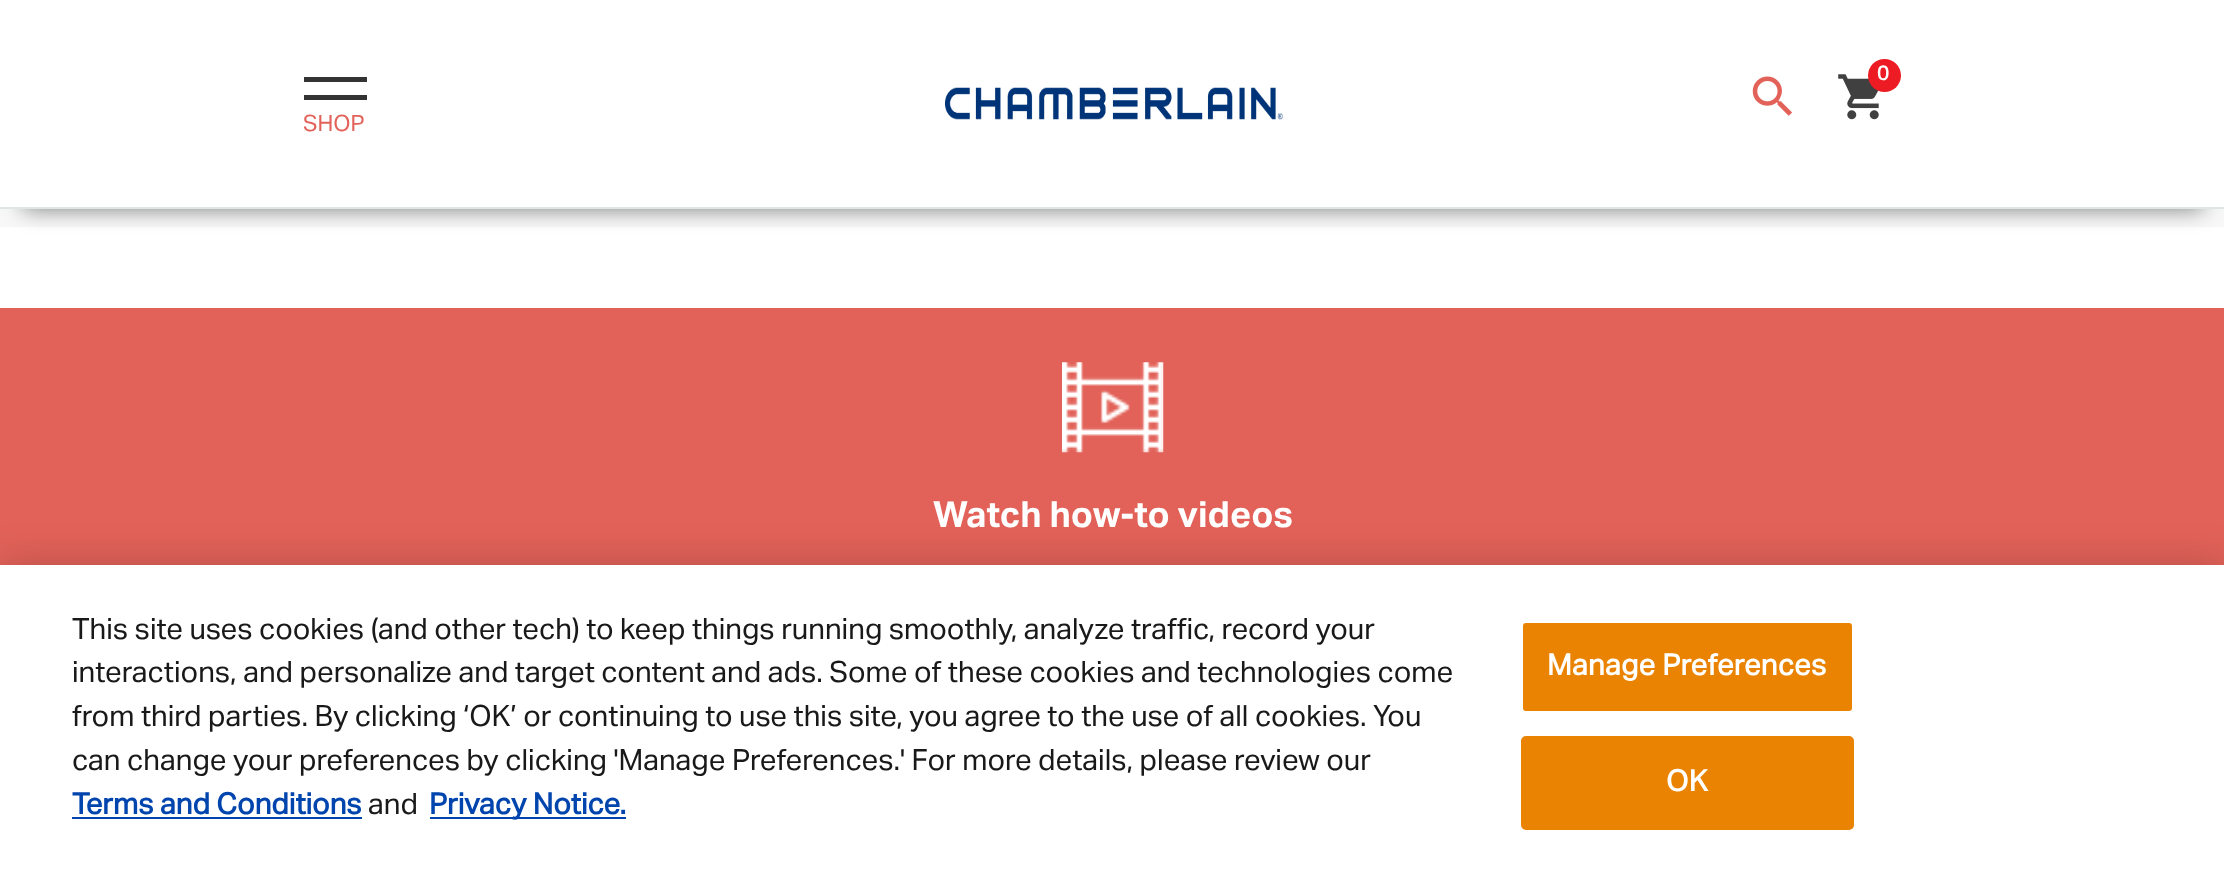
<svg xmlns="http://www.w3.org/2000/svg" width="2224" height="874">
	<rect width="100%" height="100%" fill="#FFFFFF" />
	<rect x="0" y="209" width="2224" height="18" fill="#F8F8F8" />
	<rect x="23" y="45" width="2180" height="164" fill="#000000" fill-opacity="0.5" filter="blur(11px)" />
	<rect x="0" y="22" width="2224" height="185" fill="#FFFFFF" />
	<rect x="0" y="207" width="2224" height="2" fill="#E0E6E6" />
	<image x="1838" y="74" width="41" height="46" href="assets/img1.png" />
	<circle cx="1884.5" cy="75.5" r="16.5" fill="#ED1C24" />
	<text x="1877" y="80" font-family="'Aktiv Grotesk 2'" font-size="20" font-weight="700" fill="#FFFFFF">0</text>
	<image x="1752" y="76" width="40" height="40" href="assets/img2.png" />
	<image x="945" y="87" width="338" height="33" href="assets/img3.png" />
	<rect x="304" y="77" width="63" height="5" fill="#333333" />
	<rect x="304" y="95" width="63" height="5" fill="#333333" />
	<text x="303" y="131" font-family="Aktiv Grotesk" font-size="22.5" fill="#E26259">SHOP</text>
	<rect x="0" y="308" width="2224" height="257" fill="#E26259" />
	<image x="1062" y="362" width="102" height="91" href="assets/img4.png" />
	<text x="933" y="527" font-family="Aktiv Grotesk" font-size="36" font-weight="700" fill="#FFFFFF">Watch how-to videos</text>
	<rect x="0" y="565" width="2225" height="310" fill="#000000" fill-opacity="0.2" filter="blur(20px)" />
	<rect x="0" y="565" width="2224" height="309" fill="#FFFFFF" />
	<g font-family="Aktiv Grotesk" font-size="29.25" fill="#191919">
		<text x="72" y="639">This site uses cookies (and other tech) to keep things running smoothly, analyze traffic, record your</text>
		<text x="72" y="682">interactions, and personalize and target content and ads. Some of these cookies and technologies come</text>
		<text x="72" y="726">from third parties. By clicking ‘OK’ or continuing to use this site, you agree to the use of all cookies. You</text>
		<text x="72" y="770">can change your preferences by clicking 'Manage Preferences.' For more details, please review our</text>
	</g>
	<text x="72" y="814" font-family="'Aktiv Grotesk 2'" font-size="29.25" font-weight="700" fill="#0045AD">Terms and Conditions</text>
	<rect x="72" y="817" width="290" height="2" fill="#0045AD" />
	<text x="368" y="814" font-family="Aktiv Grotesk" font-size="29.25" fill="#191919">and</text>
	<rect x="430" y="817" width="196" height="2" fill="#0045AD" />
	<text x="429" y="814" font-family="'Aktiv Grotesk 2'" font-size="29.25" font-weight="700" fill="#0045AD">Privacy Notice.</text>
	<rect x="1522" y="622" width="331" height="90" rx="4" fill="#E98301" stroke="#FFFFFF" stroke-width="2" />
	<text x="1547" y="675" font-family="'Aktiv Grotesk 2'" font-size="29.25" font-weight="700" letter-spacing="0.25" fill="#FFFFFF">Manage Preferences</text>
	<rect x="1522" y="737" width="331" height="92" rx="4" fill="#E98301" stroke="#E98301" stroke-width="2" />
	<text x="1666" y="791" font-family="'Aktiv Grotesk 2'" font-size="29.25" font-weight="700" letter-spacing="0.25" fill="#FFFFFF">OK</text>
</svg>
